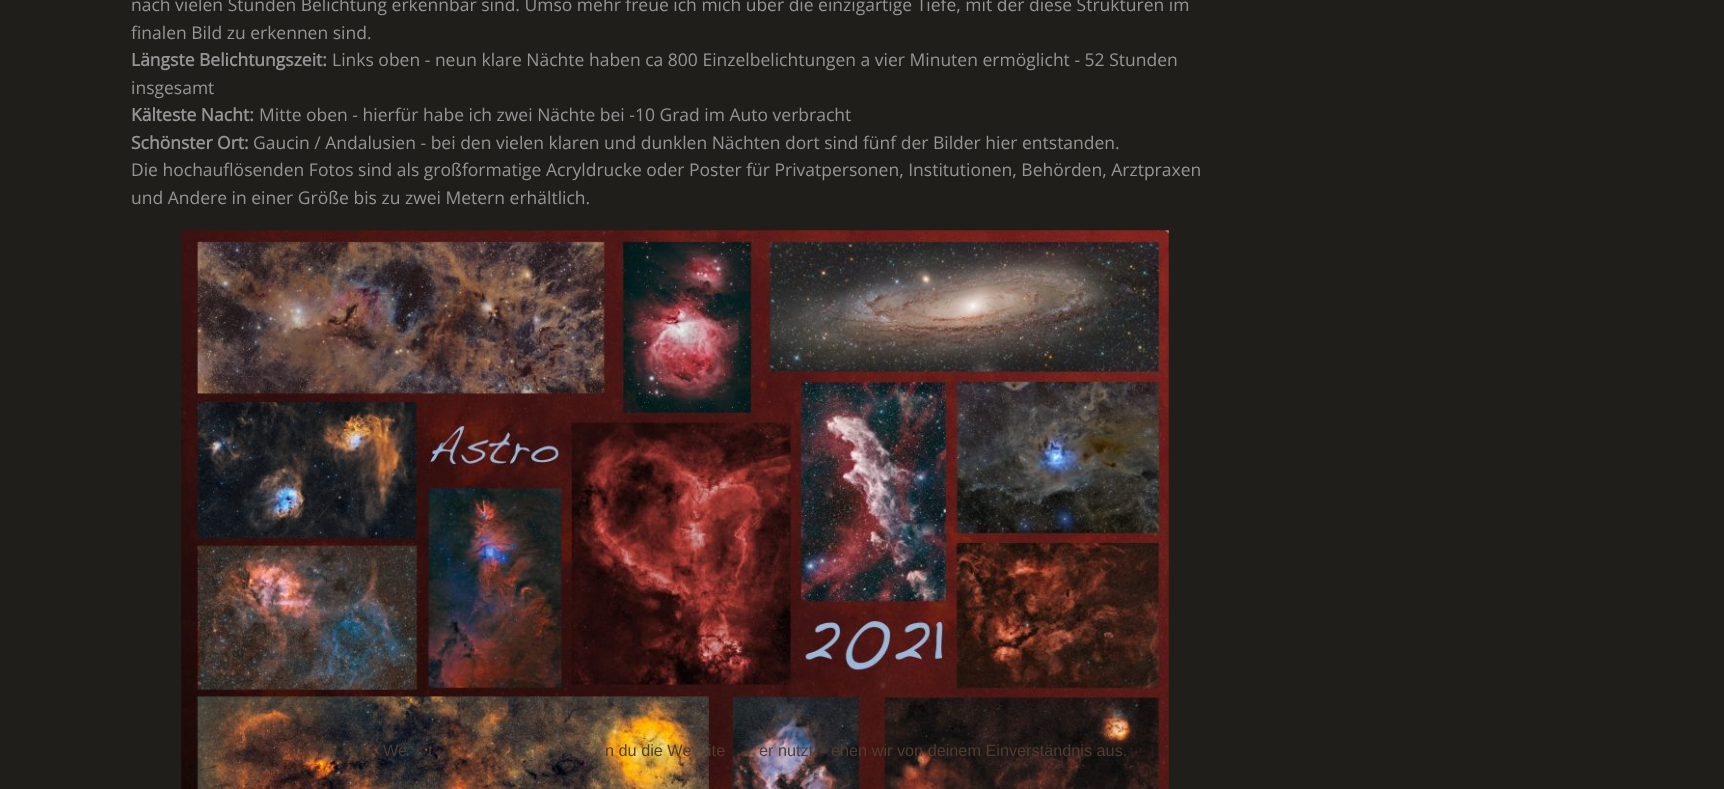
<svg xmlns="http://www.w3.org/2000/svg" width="1724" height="789">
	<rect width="100%" height="100%" fill="#1F1E1A" />
	<g font-family="Open Sans" font-size="17.5" fill="#969595">
		<text x="131" y="11">nach vielen Stunden Belichtung erkennbar sind. Umso mehr freue ich mich über die einzigartige Tiefe, mit der diese Strukturen im</text>
		<text x="131" y="39">finalen Bild zu erkennen sind.</text>
	</g>
	<text x="131" y="66" font-family="Open Sans" font-size="17.5" font-weight="700" fill="#969595">Längste Belichtungszeit:</text>
	<g font-family="Open Sans" font-size="17.5" fill="#969595">
		<text x="332" y="66">Links oben - neun klare Nächte haben ca 800 Einzelbelichtungen a vier Minuten ermöglicht - 52 Stunden</text>
		<text x="131" y="94">insgesamt</text>
	</g>
	<text x="131" y="121" font-family="Open Sans" font-size="17.5" font-weight="700" fill="#969595">Kälteste Nacht:</text>
	<text x="259" y="121" font-family="Open Sans" font-size="17.5" fill="#969595">Mitte oben - hierfür habe ich zwei Nächte bei -10 Grad im Auto verbracht</text>
	<text x="131" y="149" font-family="Open Sans" font-size="17.5" font-weight="700" fill="#969595">Schönster Ort:</text>
	<g font-family="Open Sans" font-size="17.5" fill="#969595">
		<text x="253" y="149">Gaucin / Andalusien - bei den vielen klaren und dunklen Nächten dort sind fünf der Bilder hier entstanden.</text>
		<text x="131" y="176">Die hochauflösenden Fotos sind als großformatige Acryldrucke oder Poster für Privatpersonen, Institutionen, Behörden, Arztpraxen</text>
		<text x="131" y="204">und Andere in einer Größe bis zu zwei Metern erhältlich.</text>
	</g>
	<image x="181" y="230" width="988" height="559" href="assets/img1.png" />
	<g font-family="Liberation Sans" font-size="16.25" fill="#503D2F">
		<text x="383" y="756">We</text>
		<text x="428" y="756">t</text>
		<text x="605" y="756">n du die We</text>
		<text x="708" y="756">ite</text>
		<text x="759" y="756">er nutzt</text>
		<text x="831" y="756">ehen wir von deinem Einverständnis aus.</text>
	</g>
</svg>
